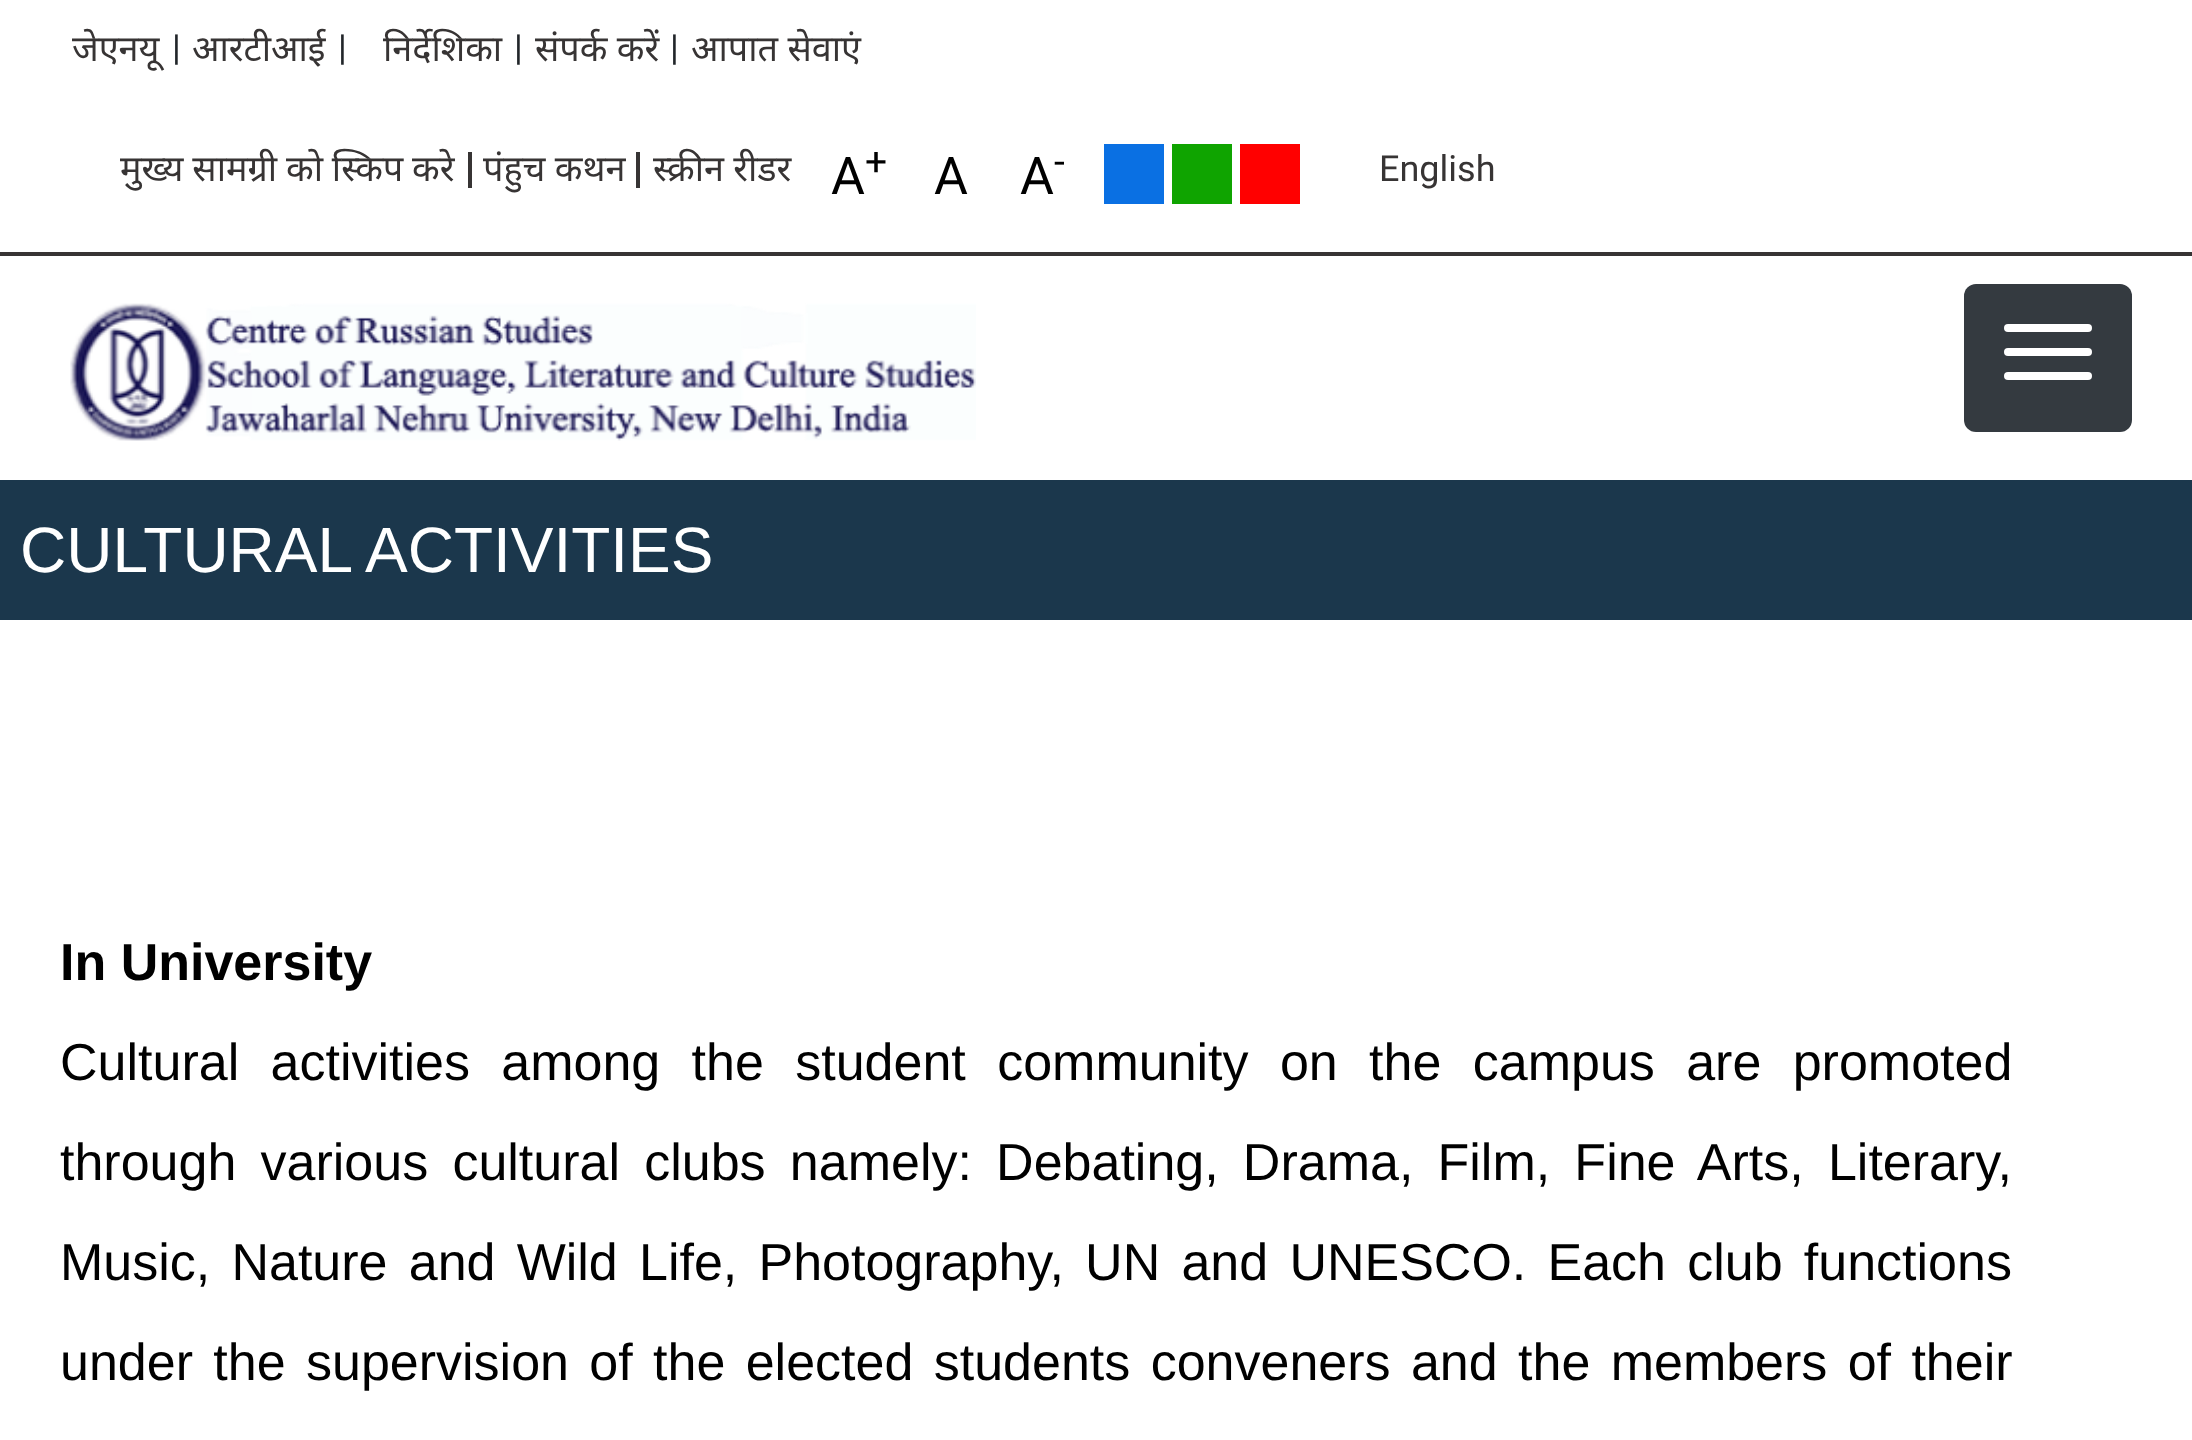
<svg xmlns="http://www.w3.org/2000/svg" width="2192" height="1440">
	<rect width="100%" height="100%" fill="#FFFFFF" />
	<rect x="0" y="252" width="2192" height="4" fill="#373434" />
	<text x="72" y="61" font-family="Noto Sans" font-size="36" fill="#373434">जेएनयू</text>
	<text x="172" y="60" font-family="Roboto" font-size="36" fill="#212529">|</text>
	<text x="192" y="61" font-family="Noto Sans" font-size="36" fill="#373434">आरटीआई</text>
	<text x="338" y="60" font-family="Roboto" font-size="36" fill="#212529">|</text>
	<text x="383" y="61" font-family="Noto Sans" font-size="36" fill="#373434">निर्देशिका</text>
	<text x="514" y="60" font-family="Roboto" font-size="36" fill="#212529">|</text>
	<text x="535" y="61" font-family="Noto Sans" font-size="36" fill="#373434">संपर्क करें</text>
	<text x="670" y="60" font-family="Roboto" font-size="36" fill="#212529">|</text>
	<text x="691" y="61" font-family="Noto Sans" font-size="36" fill="#373434">आपात सेवाएं</text>
	<rect x="468" y="152" width="4" height="36" fill="#373434" />
	<text x="120" y="181" word-spacing="-0.5" font-family="Noto Sans" font-size="36" fill="#373434">मुख्य सामग्री को स्किप करे</text>
	<rect x="636" y="152" width="4" height="36" fill="#373434" />
	<g font-family="Noto Sans" font-size="36" fill="#373434">
		<text x="483" y="181">पंहुच कथन</text>
		<text x="653" y="181">स्क्रीन रीडर</text>
	</g>
	<text x="831" y="194" font-family="Roboto" font-size="52" fill="#000000">A</text>
	<text x="865" y="175" font-family="Roboto" font-size="39" fill="#000000">+</text>
	<g font-family="Roboto" font-size="52" fill="#000000">
		<text x="934" y="194">A</text>
		<text x="1020" y="194">A</text>
	</g>
	<text x="1054" y="175" font-family="Roboto" font-size="39" fill="#000000">-</text>
	<rect x="1104" y="144" width="60" height="60" fill="#0A70E3" />
	<rect x="1172" y="144" width="60" height="60" fill="#0FA400" />
	<rect x="1240" y="144" width="60" height="60" fill="#FF0000" />
	<text x="1379" y="181" font-family="Roboto" font-size="36" fill="#373434">English</text>
	<image x="70" y="303" width="906" height="138" href="assets/img1.png" />
	<rect x="1964" y="284" width="168" height="148" rx="12" fill="#343A40" />
	<rect x="2004" y="324" width="88" height="8" rx="4" fill="#FFFFFF" />
	<rect x="2004" y="348" width="88" height="8" rx="4" fill="#FFFFFF" />
	<rect x="2004" y="372" width="88" height="8" rx="4" fill="#FFFFFF" />
	<rect x="0" y="480" width="2192" height="140" fill="#1B374C" />
	<text x="20" y="572" font-family="Liberation Sans" font-size="64" fill="#FFFFFF">CULTURAL ACTIVITIES</text>
	<text x="60" y="980" font-family="Liberation Sans" font-size="52" font-weight="700" fill="#000000">In University</text>
	<g font-family="Liberation Sans" font-size="52" fill="#000000">
		<text x="60" y="1080" word-spacing="16.9">Cultural activities among the student community on the campus are promoted</text>
		<text x="60" y="1180" word-spacing="9.75">through various cultural clubs namely: Debating, Drama, Film, Fine Arts, Literary,</text>
		<text x="60" y="1280" word-spacing="6.75">Music, Nature and Wild Life, Photography, UN and UNESCO. Each club functions</text>
		<text x="60" y="1380" word-spacing="5.9">under the supervision of the elected students conveners and the members of their</text>
	</g>
</svg>
